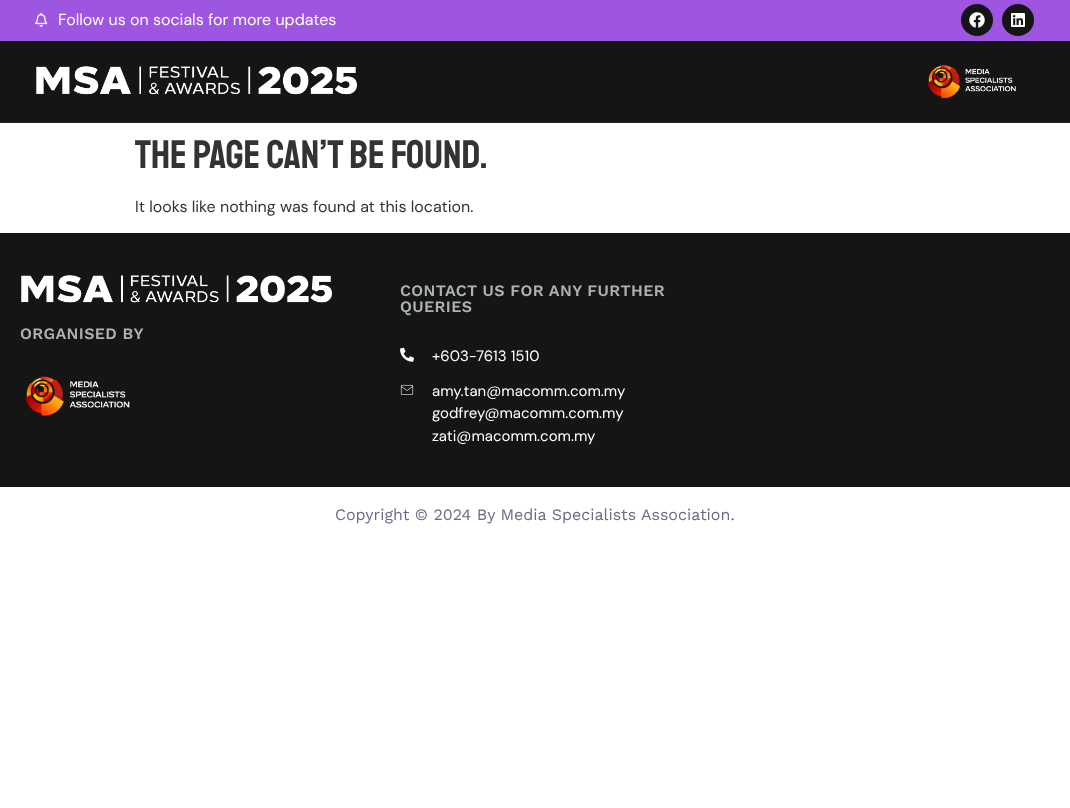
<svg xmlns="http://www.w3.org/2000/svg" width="1070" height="808">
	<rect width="100%" height="100%" fill="#FFFFFF" />
	<rect x="0" y="0" width="1070" height="41" fill="#9E55E0" />
	<image x="35" y="12" width="13" height="15" href="assets/img1.png" />
	<text x="58" y="25" font-family="DM Sans" font-size="16" fill="#FFFFFF">Follow us on socials for more updates</text>
	<circle cx="977" cy="20" r="16" fill="#151515" />
	<image x="969" y="12" width="16" height="16" href="assets/img2.png" />
	<circle cx="1018" cy="20" r="16" fill="#151515" />
	<image x="1011" y="13" width="14" height="14" href="assets/img3.png" />
	<rect x="0" y="41" width="1070" height="81" fill="#151515" />
	<rect x="0" y="122" width="1070" height="1" fill="#252525" />
	<image x="36" y="66" width="321" height="29" href="assets/img4.png" />
	<image x="928" y="65" width="88" height="33" href="assets/img5.png" />
	<text x="135" y="168" font-family="Staatliches" font-size="40" fill="#333333">The page can’t be found.</text>
	<text x="135" y="212" font-family="DM Sans" font-size="16" fill="#333333">It looks like nothing was found at this location.</text>
	<rect x="0" y="233" width="1070" height="254" fill="#151515" />
	<image x="21" y="275" width="311" height="28" href="assets/img6.png" />
	<text x="20" y="339" font-family="Work Sans" font-size="16" font-weight="600" letter-spacing="0.4" fill="#ABB3AE">ORGANISED BY</text>
	<image x="25" y="376" width="105" height="40" href="assets/img7.png" />
	<g font-family="Work Sans" font-size="16" font-weight="600" letter-spacing="0.4" fill="#ABB3AE">
		<text x="400" y="296">CONTACT US FOR ANY FURTHER</text>
		<text x="400" y="312">QUERIES</text>
	</g>
	<image x="400" y="347" width="14" height="15" href="assets/img8.png" />
	<text x="432" y="361" font-family="DM Sans" font-size="15" fill="#FFFFFF">+603-7613 1510</text>
	<image x="400" y="384" width="14" height="11" href="assets/img9.png" />
	<g font-family="DM Sans" font-size="15" fill="#FFFFFF">
		<text x="432" y="396">amy.tan@macomm.com.my</text>
		<text x="432" y="418">godfrey@macomm.com.my</text>
		<text x="432" y="441">zati@macomm.com.my</text>
	</g>
	<text x="335" y="520" font-family="Work Sans" font-size="16" fill="#696A87">Copyright © 2024 By Media Specialists Association.</text>
</svg>
